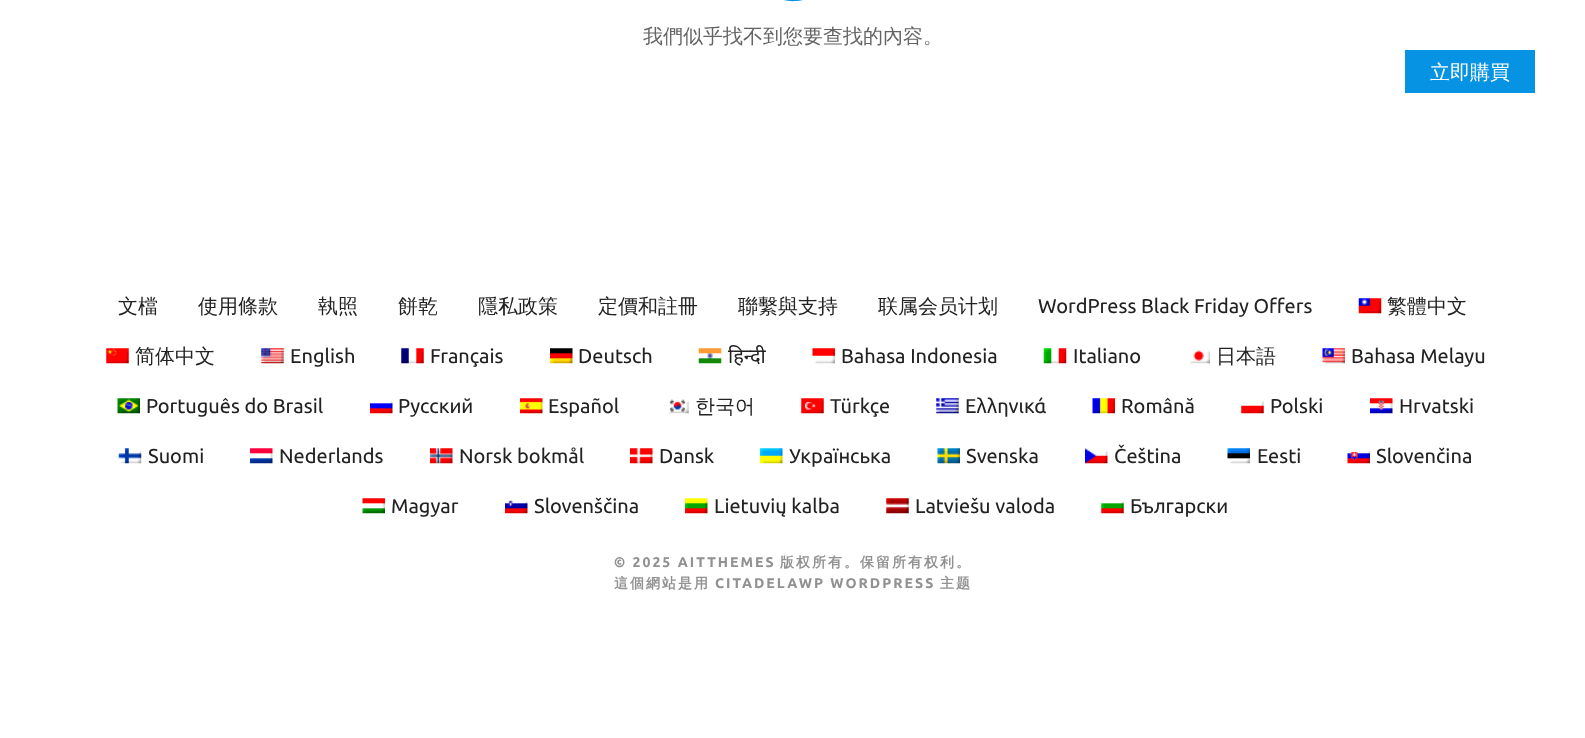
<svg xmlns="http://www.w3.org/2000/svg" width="1585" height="738">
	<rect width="100%" height="100%" fill="#FFFFFF" />
	<path d="M769-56C774-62 781-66 789-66C821-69 839-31 816-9C811-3 804 1 796 1C764 4 746-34 769-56ZM818-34C816-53 794-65 778-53L813-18C817-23 818-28 818-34ZM767-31C769-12 791 0 807-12L772-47C768-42 767-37 767-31Z" fill="#0693E3" />
	<text x="643" y="43" font-family="WenQuanYi Zen Hei" font-size="20" font-weight="500" fill="#646464">我們似乎找不到您要查找的內容。</text>
	<rect x="1405" y="50" width="130" height="43" fill="#0693E3" />
	<text x="1430" y="79" font-family="WenQuanYi Zen Hei" font-size="20" font-weight="500" fill="#FFFFFF">立即購買</text>
	<g font-family="WenQuanYi Zen Hei" font-size="20" font-weight="500" fill="#222222">
		<text x="118" y="313">文檔</text>
		<text x="198" y="313">使用條款</text>
		<text x="318" y="313">執照</text>
		<text x="398" y="313">餅乾</text>
		<text x="478" y="313">隱私政策</text>
		<text x="598" y="313">定價和註冊</text>
		<text x="738" y="313">聯繫與支持</text>
		<text x="878" y="313">联属会员计划</text>
	</g>
	<text x="1038" y="313" font-family="Ubuntu" font-size="20" fill="#222222">WordPress Black Friday Offers</text>
	<image x="1358" y="298" width="24" height="16" href="assets/img1.png" />
	<text x="1387" y="313" font-family="WenQuanYi Zen Hei" font-size="20" font-weight="500" fill="#222222">繁體中文</text>
	<image x="106" y="348" width="23" height="16" href="assets/img2.png" />
	<text x="135" y="363" font-family="WenQuanYi Zen Hei" font-size="20" font-weight="500" fill="#222222">简体中文</text>
	<image x="261" y="348" width="23" height="16" href="assets/img3.png" />
	<text x="290" y="363" font-family="Ubuntu" font-size="20" fill="#222222">English</text>
	<image x="401" y="348" width="23" height="16" href="assets/img4.png" />
	<text x="430" y="363" font-family="Ubuntu" font-size="20" fill="#222222">Français</text>
	<image x="550" y="348" width="23" height="16" href="assets/img5.png" />
	<text x="578" y="363" font-family="Ubuntu" font-size="20" fill="#222222">Deutsch</text>
	<image x="698" y="348" width="24" height="16" href="assets/img6.png" />
	<text x="728" y="363" font-family="Noto Sans" font-size="20" fill="#222222">हिन्दी</text>
	<image x="812" y="348" width="23" height="16" href="assets/img7.png" />
	<text x="841" y="363" font-family="Ubuntu" font-size="20" fill="#222222">Bahasa Indonesia</text>
	<image x="1043" y="348" width="24" height="16" href="assets/img8.png" />
	<text x="1073" y="363" font-family="Ubuntu" font-size="20" fill="#222222">Italiano</text>
	<image x="1190" y="350" width="20" height="14" href="assets/img9.png" />
	<text x="1216" y="363" font-family="WenQuanYi Zen Hei" font-size="20" font-weight="500" fill="#222222">日本語</text>
	<image x="1322" y="348" width="23" height="16" href="assets/img10.png" />
	<text x="1351" y="363" font-family="Ubuntu" font-size="20" fill="#222222">Bahasa Melayu</text>
	<image x="117" y="398" width="23" height="16" href="assets/img11.png" />
	<text x="146" y="413" font-family="Ubuntu" font-size="20" fill="#222222">Português do Brasil</text>
	<image x="370" y="400" width="23" height="14" href="assets/img12.png" />
	<text x="398" y="413" font-family="Ubuntu" font-size="20" fill="#222222">Русский</text>
	<image x="520" y="398" width="23" height="16" href="assets/img13.png" />
	<text x="548" y="413" font-family="Ubuntu" font-size="20" fill="#222222">Español</text>
	<image x="668" y="399" width="21" height="15" href="assets/img14.png" />
	<text x="695" y="413" font-family="WenQuanYi Zen Hei" font-size="20" font-weight="500" fill="#222222">한국어</text>
	<image x="801" y="398" width="23" height="16" href="assets/img15.png" />
	<text x="830" y="413" font-family="Ubuntu" font-size="20" fill="#222222">Türkçe</text>
	<image x="936" y="398" width="23" height="16" href="assets/img16.png" />
	<text x="965" y="413" font-family="Ubuntu" font-size="20" fill="#222222">Ελληνικά</text>
	<image x="1092" y="398" width="23" height="16" href="assets/img17.png" />
	<text x="1121" y="413" font-family="Ubuntu" font-size="20" fill="#222222">Română</text>
	<image x="1241" y="400" width="23" height="14" href="assets/img18.png" />
	<text x="1270" y="413" font-family="Ubuntu" font-size="20" fill="#222222">Polski</text>
	<image x="1370" y="398" width="23" height="16" href="assets/img19.png" />
	<text x="1399" y="413" font-family="Ubuntu" font-size="20" fill="#222222">Hrvatski</text>
	<image x="118" y="448" width="24" height="16" href="assets/img20.png" />
	<text x="148" y="463" font-family="Ubuntu" font-size="20" fill="#222222">Suomi</text>
	<image x="250" y="448" width="23" height="16" href="assets/img21.png" />
	<text x="279" y="463" font-family="Ubuntu" font-size="20" fill="#222222">Nederlands</text>
	<image x="430" y="448" width="23" height="16" href="assets/img22.png" />
	<text x="459" y="463" font-family="Ubuntu" font-size="20" fill="#222222">Norsk bokmål</text>
	<image x="630" y="448" width="23" height="16" href="assets/img23.png" />
	<text x="659" y="463" font-family="Ubuntu" font-size="20" fill="#222222">Dansk</text>
	<image x="760" y="448" width="23" height="16" href="assets/img24.png" />
	<text x="789" y="463" font-family="Ubuntu" font-size="20" fill="#222222">Українська</text>
	<image x="937" y="448" width="23" height="16" href="assets/img25.png" />
	<text x="966" y="463" font-family="Ubuntu" font-size="20" fill="#222222">Svenska</text>
	<image x="1085" y="448" width="23" height="16" href="assets/img26.png" />
	<text x="1114" y="463" font-family="Ubuntu" font-size="20" fill="#222222">Čeština</text>
	<image x="1227" y="448" width="23" height="16" href="assets/img27.png" />
	<text x="1257" y="463" font-family="Ubuntu" font-size="20" fill="#222222">Eesti</text>
	<image x="1347" y="450" width="23" height="14" href="assets/img28.png" />
	<text x="1376" y="463" font-family="Ubuntu" font-size="20" fill="#222222">Slovenčina</text>
	<image x="362" y="498" width="23" height="16" href="assets/img29.png" />
	<text x="391" y="513" font-family="Ubuntu" font-size="20" fill="#222222">Magyar</text>
	<image x="505" y="500" width="23" height="14" href="assets/img30.png" />
	<text x="534" y="513" font-family="Ubuntu" font-size="20" fill="#222222">Slovenščina</text>
	<image x="685" y="498" width="23" height="16" href="assets/img31.png" />
	<text x="714" y="513" font-family="Ubuntu" font-size="20" fill="#222222">Lietuvių kalba</text>
	<image x="886" y="498" width="23" height="16" href="assets/img32.png" />
	<text x="915" y="513" font-family="Ubuntu" font-size="20" fill="#222222">Latviešu valoda</text>
	<image x="1101" y="500" width="23" height="14" href="assets/img33.png" />
	<text x="1130" y="513" font-family="Ubuntu" font-size="20" fill="#222222">Български</text>
	<text x="614" y="567" font-family="Ubuntu" font-size="14" font-weight="700" letter-spacing="2" fill="#919191">© 2025 AITTHEMES</text>
	<g font-family="WenQuanYi Zen Hei" font-size="14" font-weight="700" letter-spacing="2" fill="#919191">
		<text x="780" y="567">版权所有。保留所有权利。</text>
		<text x="614" y="588">這個網站是用</text>
	</g>
	<text x="715" y="588" font-family="Ubuntu" font-size="14" font-weight="700" letter-spacing="2" fill="#919191">CITADELAWP WORDPRESS</text>
	<text x="940" y="588" font-family="WenQuanYi Zen Hei" font-size="14" font-weight="700" letter-spacing="2" fill="#919191">主题</text>
</svg>
